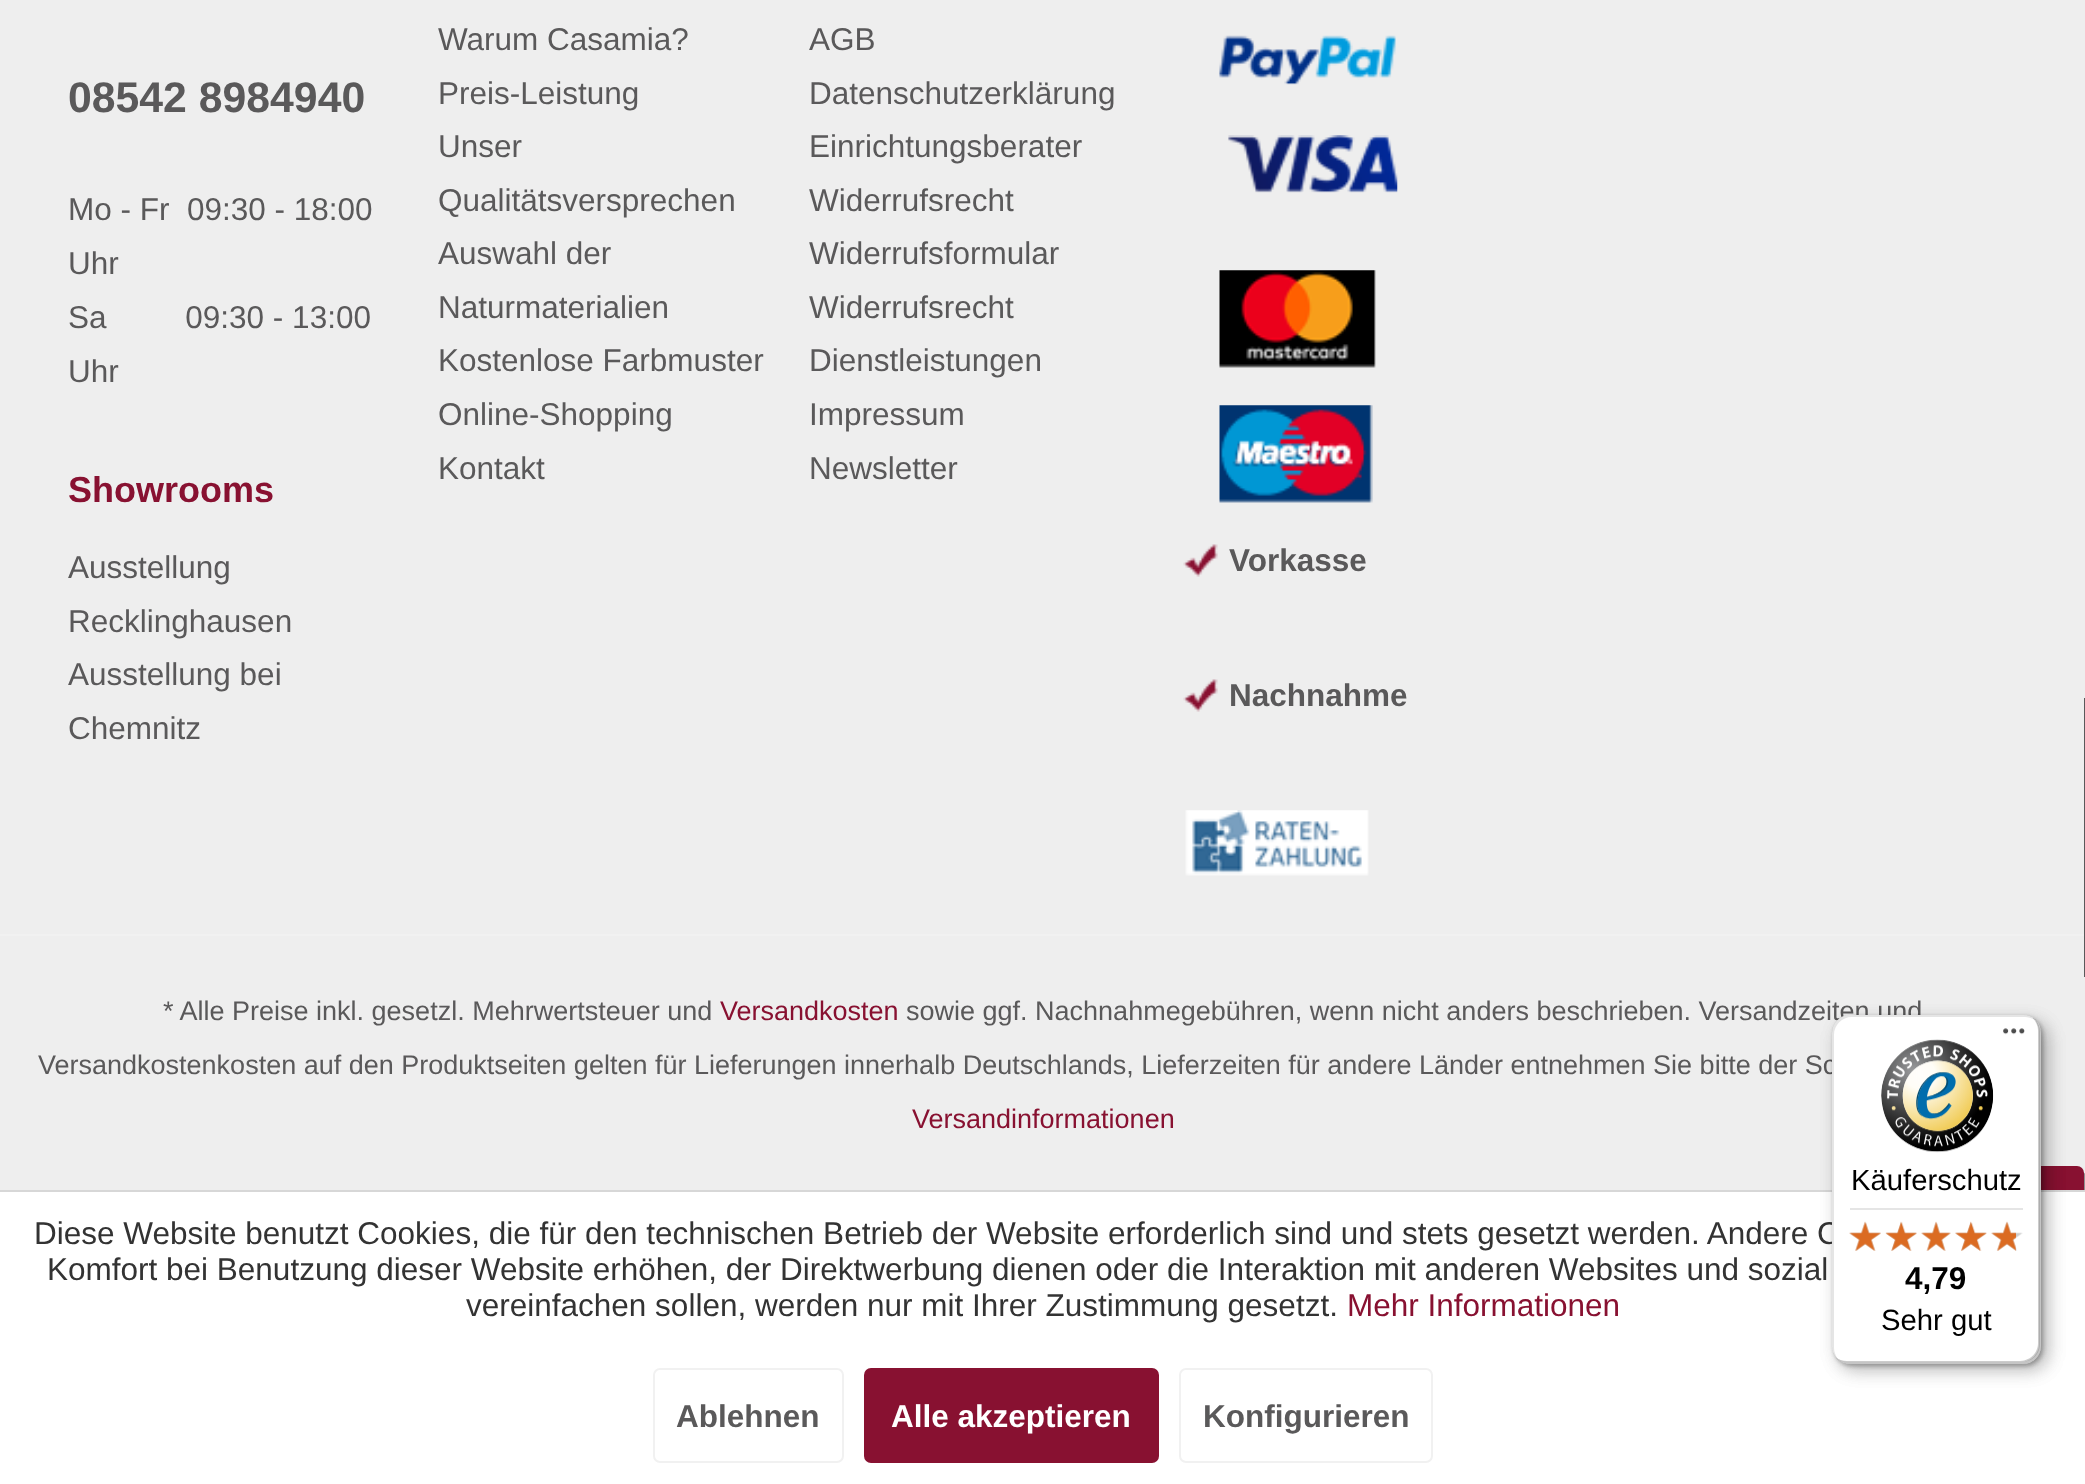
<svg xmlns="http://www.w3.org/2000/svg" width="2085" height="1484">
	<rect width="100%" height="100%" fill="#EEEEEE" />
	<rect x="0" y="934" width="2085" height="2" fill="#F1F1F1" />
	<text x="68" y="112" font-family="Liberation Sans" font-size="42.75" font-weight="700" fill="#5A595A">08542 8984940</text>
	<g font-family="Liberation Sans" font-size="31.5" fill="#5A595A">
		<text x="68" y="220" xml:space="preserve">Mo - Fr  09:30 - 18:00</text>
		<text x="68" y="274">Uhr</text>
		<text x="68" y="328" xml:space="preserve">Sa         09:30 - 13:00</text>
		<text x="68" y="382">Uhr</text>
	</g>
	<text x="68" y="502" font-family="Liberation Sans" font-size="36" font-weight="700" fill="#881131">Showrooms</text>
	<g font-family="Liberation Sans" font-size="31.5" fill="#5A595A">
		<text x="68" y="578">Ausstellung</text>
		<text x="68" y="632">Recklinghausen</text>
		<text x="68" y="685">Ausstellung bei</text>
		<text x="68" y="739">Chemnitz</text>
		<text x="438" y="50">Warum Casamia?</text>
		<text x="438" y="104">Preis-Leistung</text>
		<text x="438" y="157">Unser</text>
		<text x="438" y="211">Qualitätsversprechen</text>
		<text x="438" y="264">Auswahl der</text>
		<text x="438" y="318">Naturmaterialien</text>
		<text x="438" y="371">Kostenlose Farbmuster</text>
		<text x="438" y="425">Online-Shopping</text>
		<text x="438" y="479">Kontakt</text>
		<text x="809" y="50">AGB</text>
		<text x="809" y="104">Datenschutzerklärung</text>
		<text x="809" y="157">Einrichtungsberater</text>
		<text x="809" y="211">Widerrufsrecht</text>
		<text x="809" y="264">Widerrufsformular</text>
		<text x="809" y="318">Widerrufsrecht</text>
		<text x="809" y="371">Dienstleistungen</text>
		<text x="809" y="425">Impressum</text>
		<text x="809" y="479">Newsletter</text>
	</g>
	<image x="1219" y="35" width="177" height="50" href="assets/img1.png" />
	<image x="1228" y="135" width="170" height="58" href="assets/img2.png" />
	<image x="1219" y="270" width="157" height="98" href="assets/img3.png" />
	<image x="1219" y="405" width="154" height="98" href="assets/img4.png" />
	<image x="1183" y="544" width="35" height="33" href="assets/img5.png" />
	<text x="1229" y="571" font-family="Liberation Sans" font-size="31.5" font-weight="700" fill="#5A595A">Vorkasse</text>
	<image x="1183" y="679" width="35" height="33" href="assets/img5.png" />
	<text x="1229" y="706" font-family="Liberation Sans" font-size="31.5" font-weight="700" fill="#5A595A">Nachnahme</text>
	<image x="1185" y="810" width="184" height="66" href="assets/img6.png" />
	<text x="163" y="1020" font-family="Liberation Sans" font-size="27" fill="#5A595A">* Alle Preise inkl. gesetzl. Mehrwertsteuer und</text>
	<text x="720" y="1020" font-family="Liberation Sans" font-size="27" fill="#881131">Versandkosten</text>
	<g font-family="Liberation Sans" font-size="27" fill="#5A595A">
		<text x="906" y="1020">sowie ggf. Nachnahmegebühren, wenn nicht anders beschrieben. Versandzeiten und</text>
		<text x="38" y="1074">Versandkostenkosten auf den Produktseiten gelten für Lieferungen innerhalb Deutschlands, Lieferzeiten für andere Länder entnehmen Sie bitte der Sc</text>
	</g>
	<text x="912" y="1128" font-family="Liberation Sans" font-size="27" fill="#881131">Versandinformationen</text>
	<rect x="2085" y="699" width="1" height="277" fill="none" stroke="#5A595A" stroke-width="2" />
	<path d="M1964 1276C1964 1280 1967 1283 1971 1283H2079C2083 1283 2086 1280 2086 1276V1177C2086 1175 2085 1173 2083 1172L2084 1255C2084 1281 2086 1278 2059 1278H1987C1986 1278 1969 1281 1964 1276Z" fill="#000000" fill-opacity="0.4" />
	<rect x="1962" y="1166" width="122" height="112" rx="7" fill="#881131" />
	<rect x="0" y="1192" width="2085" height="292" fill="#FFFFFF" />
	<rect x="0" y="1190" width="2085" height="2" fill="#D7D7D7" />
	<rect x="1838" y="1022" width="210" height="348" rx="18" fill="#000000" fill-opacity="0.15" filter="blur(9px)" />
	<rect x="1834" y="1017" width="209" height="349" rx="18" fill="#000000" fill-opacity="0.15" filter="blur(2px)" />
	<path d="M1852 1017H2025C2029 1017 2033 1019 2037 1021C2033 1017 2028 1015 2023 1015H1850C1840 1015 1832 1023 1832 1033V1346C1832 1351 1834 1356 1838 1360C1836 1356 1834 1352 1834 1348V1035C1834 1025 1842 1017 1852 1017Z" fill="#000000" fill-opacity="0.1" />
	<text x="34" y="1244" font-family="Liberation Sans" font-size="31.5" fill="#333333">Diese Website benutzt Cookies, die für den technischen Betrieb der Website erforderlich sind und stets gesetzt werden. Andere C</text>
	<path d="M1836 1358C1840 1362 1845 1364 1850 1364H2023C2033 1364 2041 1356 2041 1346V1033C2041 1028 2039 1023 2035 1019C2037 1023 2039 1027 2039 1031V1344C2039 1354 2031 1362 2021 1362H1848C1844 1362 1840 1360 1836 1358Z" fill="#323232" fill-opacity="0.2" />
	<path d="M1836 1358C1840 1362 1845 1364 1850 1364H2023C2033 1364 2041 1356 2041 1346V1033C2041 1028 2039 1023 2036 1020C2038 1023 2040 1027 2040 1032V1344C2040 1354 2032 1362 2022 1362H1848C1844 1362 1840 1360 1836 1358Z" fill="#FFFFFF" fill-opacity="0.3" />
	<g font-family="Liberation Sans" font-size="31.5" fill="#333333">
		<text x="47" y="1280">Komfort bei Benutzung dieser Website erhöhen, der Direktwerbung dienen oder die Interaktion mit anderen Websites und sozial</text>
		<text x="466" y="1316">vereinfachen sollen, werden nur mit Ihrer Zustimmung gesetzt.</text>
	</g>
	<text x="1347" y="1316" font-family="Liberation Sans" font-size="31.5" fill="#881131">Mehr Informationen</text>
	<rect x="654" y="1369" width="189" height="93" rx="6" fill="none" stroke="#F1F1F1" stroke-width="2" />
	<text x="676" y="1427" font-family="Liberation Sans" font-size="31.5" font-weight="700" fill="#5A595A">Ablehnen</text>
	<rect x="864" y="1368" width="295" height="95" rx="7" fill="#881131" />
	<text x="891" y="1427" font-family="Liberation Sans" font-size="31.5" font-weight="700" fill="#FFFFFF">Alle akzeptieren</text>
	<rect x="1180" y="1369" width="252" height="93" rx="6" fill="none" stroke="#F1F1F1" stroke-width="2" />
	<text x="1203" y="1427" font-family="Liberation Sans" font-size="31.5" font-weight="700" fill="#5A595A">Konfigurieren</text>
	<rect x="1838" y="1022" width="210" height="348" rx="18" fill="#000000" fill-opacity="0.15" filter="blur(9px)" />
	<rect x="1834" y="1017" width="209" height="349" rx="18" fill="#000000" fill-opacity="0.15" filter="blur(2px)" />
	<rect x="1832" y="1015" width="209" height="349" rx="18" fill="#FFFFFF" />
	<path d="M1852 1017H2025C2029 1017 2033 1019 2037 1021C2033 1017 2028 1015 2023 1015H1850C1840 1015 1832 1023 1832 1033V1346C1832 1351 1834 1356 1838 1360C1836 1356 1834 1352 1834 1348V1035C1834 1025 1842 1017 1852 1017Z" fill="#000000" fill-opacity="0.1" />
	<path d="M1836 1357C1839 1361 1844 1364 1850 1364H2023C2033 1364 2041 1356 2041 1346V1033C2041 1027 2038 1022 2033 1018C2036 1022 2038 1026 2038 1030V1343C2038 1353 2030 1361 2020 1361H1847C1843 1361 1839 1360 1836 1357Z" fill="#000000" fill-opacity="0.2" />
	<path d="M1836 1358C1840 1362 1845 1364 1850 1364H2023C2033 1364 2041 1356 2041 1346V1033C2041 1028 2039 1023 2035 1019C2037 1023 2039 1027 2039 1031V1344C2039 1354 2031 1362 2021 1362H1848C1844 1362 1840 1360 1836 1358Z" fill="#323232" fill-opacity="0.2" />
	<path d="M1836 1358C1840 1362 1845 1364 1850 1364H2023C2033 1364 2041 1356 2041 1346V1033C2041 1028 2039 1023 2036 1020C2038 1023 2040 1027 2040 1032V1344C2040 1354 2032 1362 2022 1362H1848C1844 1362 1840 1360 1836 1358Z" fill="#FFFFFF" fill-opacity="0.3" />
	<image x="2003" y="1028" width="22" height="7" href="assets/img7.png" />
	<image x="1881" y="1039" width="113" height="114" href="assets/img8.png" />
	<text x="1851" y="1190" font-family="Liberation Sans" font-size="29.25" fill="#000000">Käuferschutz</text>
	<rect x="1850" y="1208" width="173" height="2" fill="#E5E5E5" />
	<image x="1849" y="1222" width="32" height="29" href="assets/img14.png" />
	<image x="1849" y="1221" width="32" height="30" href="assets/img9.png" />
	<image x="1886" y="1222" width="31" height="29" href="assets/img15.png" />
	<image x="1885" y="1221" width="32" height="30" href="assets/img10.png" />
	<image x="1921" y="1222" width="30" height="29" href="assets/img16.png" />
	<image x="1921" y="1221" width="30" height="30" href="assets/img11.png" />
	<image x="1955" y="1222" width="32" height="29" href="assets/img17.png" />
	<image x="1955" y="1221" width="32" height="30" href="assets/img12.png" />
	<image x="1991" y="1222" width="32" height="29" href="assets/img18.png" />
	<image x="1991" y="1221" width="25" height="30" href="assets/img13.png" />
	<text x="1905" y="1289" font-family="Liberation Sans" font-size="31.5" font-weight="700" fill="#000000">4,79</text>
	<text x="1881" y="1330" font-family="Liberation Sans" font-size="29.25" fill="#000000">Sehr gut</text>
</svg>
